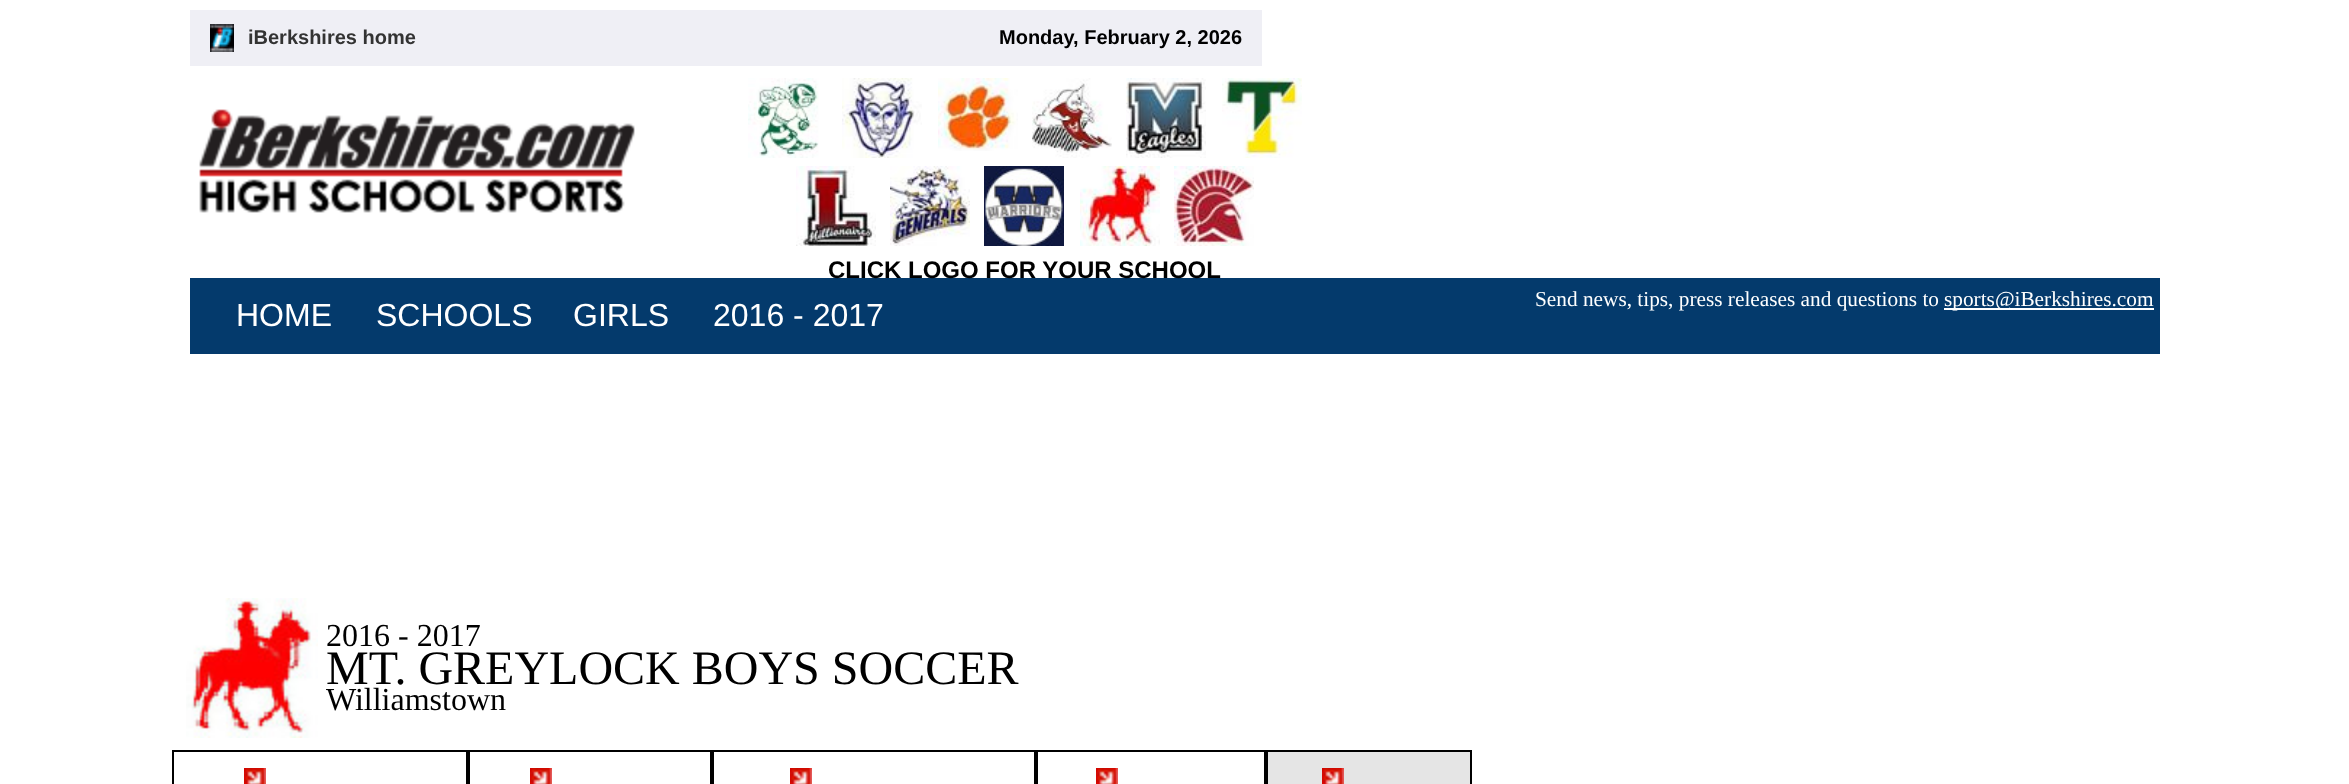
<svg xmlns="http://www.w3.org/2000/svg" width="2349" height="784">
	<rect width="100%" height="100%" fill="#FFFFFF" />
	<rect x="190" y="10" width="1072" height="56" fill="#EFEFF5" />
	<image x="210" y="24" width="24" height="28" href="assets/img1.png" />
	<text x="248" y="44" font-family="Liberation Sans" font-size="20" font-weight="700" fill="#333333">iBerkshires home</text>
	<text x="999" y="44" font-family="Liberation Sans" font-size="20" font-weight="700" fill="#000000">Monday, February 2, 2026</text>
	<image x="199" y="109" width="436" height="104" href="assets/img2.png" />
	<image x="748" y="78" width="71" height="80" href="assets/img3.png" />
	<image x="842" y="78" width="80" height="80" href="assets/img4.png" />
	<image x="938" y="78" width="80" height="73" href="assets/img5.png" />
	<image x="1032" y="78" width="80" height="80" href="assets/img6.png" />
	<image x="1126" y="78" width="80" height="80" href="assets/img7.png" />
	<image x="1222" y="78" width="80" height="80" href="assets/img8.png" />
	<image x="796" y="166" width="80" height="80" href="assets/img9.png" />
	<image x="890" y="166" width="80" height="80" href="assets/img10.png" />
	<image x="984" y="166" width="80" height="80" href="assets/img11.png" />
	<image x="1080" y="166" width="80" height="80" href="assets/img12.png" />
	<image x="1174" y="166" width="80" height="80" href="assets/img13.png" />
	<rect x="190" y="278" width="1970" height="76" fill="#043A6C" />
	<text x="828" y="278" font-family="Liberation Sans" font-size="24" font-weight="700" fill="#000000">CLICK LOGO FOR YOUR SCHOOL</text>
	<text x="1535" y="306" font-family="Liberation Serif" font-size="21.3" fill="#FFFFFF">Send news, tips, press releases and questions to</text>
	<rect x="1944" y="308" width="210" height="2" fill="#FFFFFF" />
	<text x="1944" y="306" font-family="Liberation Serif" font-size="21.3" fill="#FFFFFF">sports@iBerkshires.com</text>
	<g font-family="Liberation Sans" font-size="32" fill="#FFFFFF">
		<text x="236" y="326">HOME</text>
		<text x="376" y="326">SCHOOLS</text>
		<text x="573" y="326">GIRLS</text>
		<text x="713" y="326">2016 - 2017</text>
	</g>
	<image x="186" y="598" width="132" height="140" href="assets/img14.png" />
	<text x="326" y="646" font-family="Liberation Serif" font-size="32" fill="#000000">2016 - 2017</text>
	<text x="326" y="684" font-family="Liberation Serif" font-size="48" fill="#000000">MT. GREYLOCK BOYS SOCCER</text>
	<text x="326" y="710" font-family="Liberation Serif" font-size="32" fill="#000000">Williamstown</text>
	<rect x="173" y="751" width="294" height="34" fill="none" stroke="#000000" stroke-width="2" />
	<image x="244" y="768" width="22" height="16" href="assets/img15.png" />
	<rect x="469" y="751" width="242" height="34" fill="none" stroke="#000000" stroke-width="2" />
	<image x="530" y="768" width="22" height="16" href="assets/img15.png" />
	<rect x="713" y="751" width="322" height="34" fill="none" stroke="#000000" stroke-width="2" />
	<image x="790" y="768" width="22" height="16" href="assets/img15.png" />
	<rect x="1037" y="751" width="228" height="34" fill="none" stroke="#000000" stroke-width="2" />
	<image x="1096" y="768" width="22" height="16" href="assets/img15.png" />
	<rect x="1267" y="751" width="204" height="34" fill="#E5E5E5" stroke="#000000" stroke-width="2" />
	<image x="1322" y="768" width="22" height="16" href="assets/img15.png" />
</svg>
